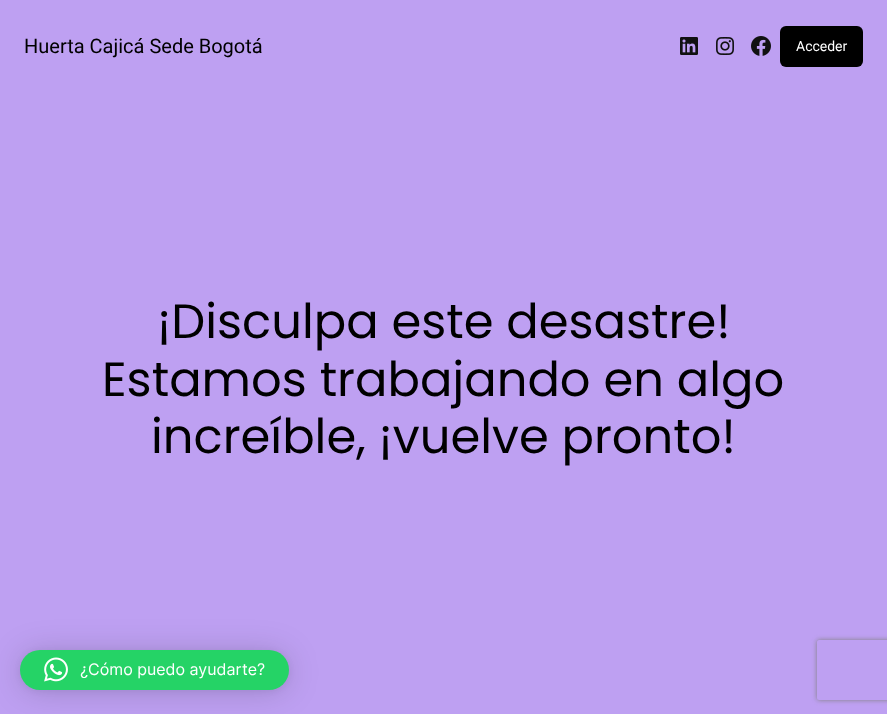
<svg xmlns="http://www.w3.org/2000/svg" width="887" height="714">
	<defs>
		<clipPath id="clip1"><path d="M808 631H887V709H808ZM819 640H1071C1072 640 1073 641 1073 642V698C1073 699 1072 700 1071 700H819C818 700 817 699 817 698V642C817 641 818 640 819 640Z" clip-rule="evenodd" /></clipPath>
	</defs>
	<rect width="100%" height="100%" fill="#BEA0F2" />
	<text x="24" y="53" font-family="Roboto" font-size="20" fill="#000000">Huerta Cajicá Sede Bogotá</text>
	<image x="680" y="37" width="18" height="18" href="assets/img1.png" />
	<image x="716" y="37" width="18" height="18" href="assets/img2.png" />
	<image x="751" y="36" width="20" height="20" href="assets/img3.png" />
	<rect x="780" y="26" width="83" height="41" rx="6" fill="#000000" />
	<text x="796" y="51" font-family="Roboto" font-size="14" fill="#FFFFFF">Acceder</text>
	<g font-family="Poppins" font-size="48" fill="#000000">
		<text x="157" y="338">¡Disculpa este desastre!</text>
		<text x="102" y="396">Estamos trabajando en algo</text>
		<text x="151" y="453">increíble, ¡vuelve pronto!</text>
	</g>
	<rect x="20" y="652" width="269" height="40" rx="20" fill="#000000" fill-opacity="0.16" filter="blur(16px)" />
	<rect x="20" y="651" width="269" height="40" rx="20" fill="#000000" fill-opacity="0.06" filter="blur(3px)" />
	<rect x="20" y="650" width="269" height="40" rx="20" fill="#25D366" />
	<image x="44" y="657" width="24" height="25" href="assets/img4.png" />
	<text x="80" y="675" font-family="Inter" font-size="16" fill="#FFFFFF">¿Cómo puedo ayudarte?</text>
	<g clip-path="url(#clip1)">
		<rect x="817" y="640" width="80" height="60" rx="2" fill="#808080" filter="blur(2.5px)" />
	</g>
</svg>
